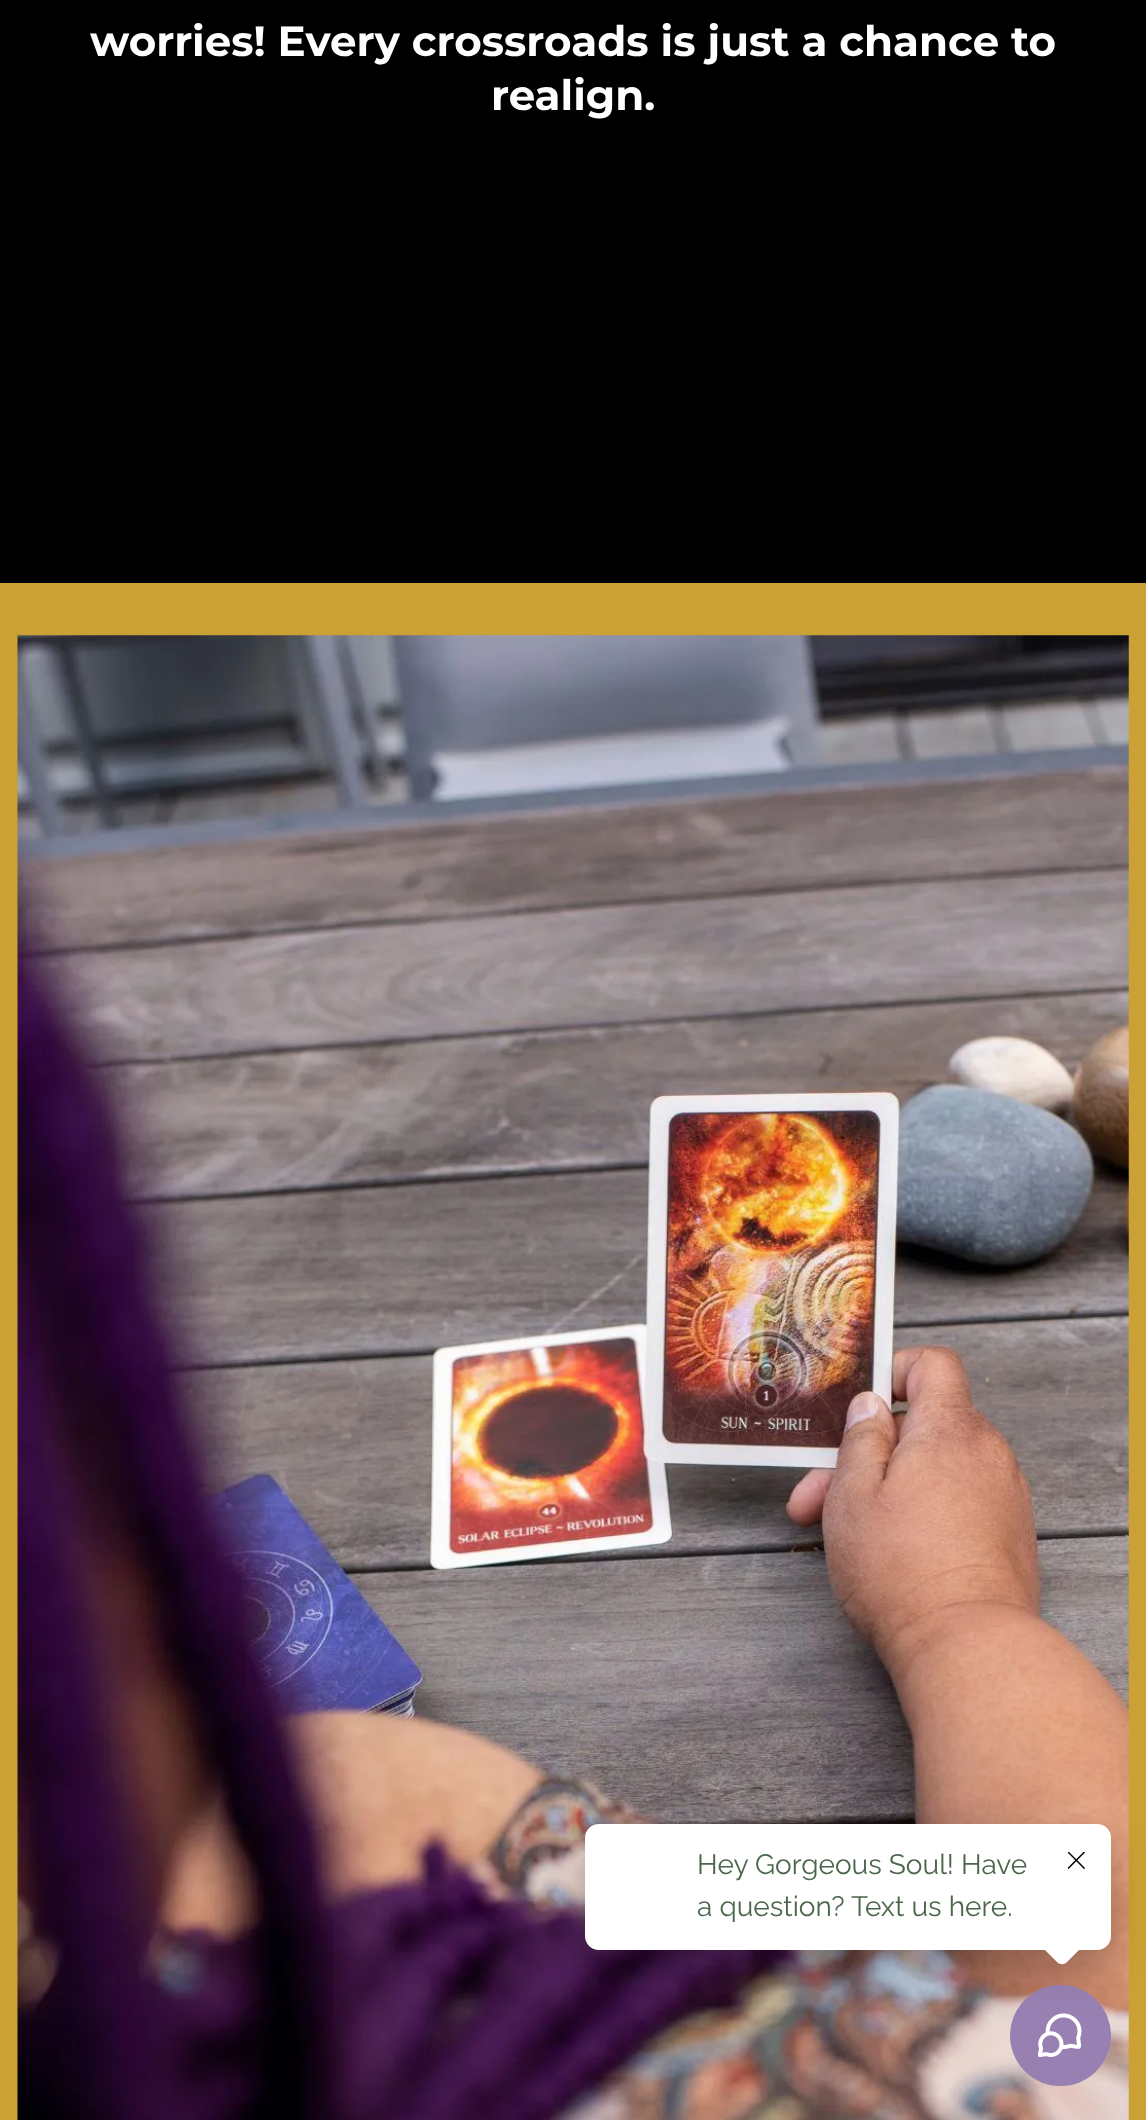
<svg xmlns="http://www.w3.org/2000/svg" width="1146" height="2120">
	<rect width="100%" height="100%" fill="#CBA135" />
	<rect x="0" y="0" width="1146" height="583" fill="#000000" />
	<g font-family="Montserrat" font-size="42" font-weight="700" fill="#FFFFFF">
		<text x="90" y="56">worries! Every crossroads is just a chance to</text>
		<text x="491" y="110">realign.</text>
	</g>
	<image x="17" y="635" width="1112" height="1485" href="assets/img1.png" />
	<circle cx="1060.5" cy="2035.5" r="50.5" fill="#9880B2" />
	<image x="1038" y="2013" width="44" height="44" href="assets/img3.png" />
	<rect x="585" y="1838" width="526" height="126" rx="14" fill="#000000" fill-opacity="0.24" filter="blur(17.5px)" />
	<rect x="585" y="1824" width="526" height="126" rx="14" fill="#FFFFFF" />
	<g font-family="Raleway" font-size="28" fill="#4B664B">
		<text x="697" y="1874">Hey Gorgeous Soul! Have</text>
		<text x="697" y="1916">a question? Text us here.</text>
	</g>
	<path d="M1067 1923L1082 1938C1085 1940 1085 1945 1082 1947L1067 1962C1064 1965 1060 1965 1057 1962L1042 1947C1040 1945 1040 1940 1042 1938L1057 1923C1060 1920 1064 1920 1067 1923Z" fill="#FFFFFF" />
	<image x="1068" y="1852" width="17" height="17" href="assets/img2.png" />
</svg>
